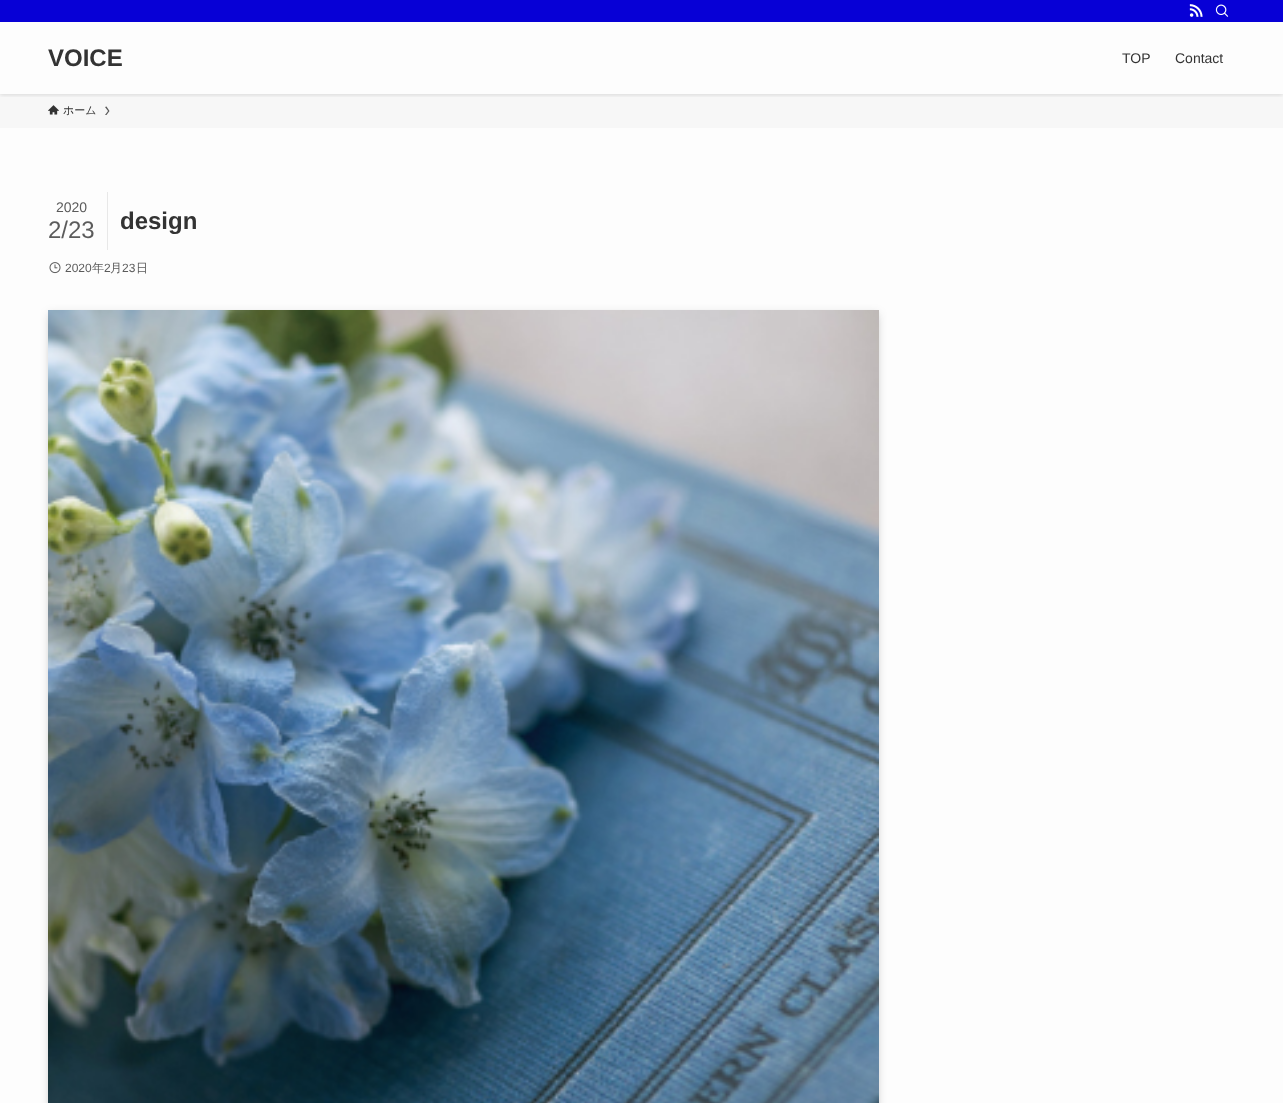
<svg xmlns="http://www.w3.org/2000/svg" width="1283" height="1103">
	<defs>
		<clipPath id="clip1"><rect x="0" y="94" width="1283" height="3" /></clipPath>
	</defs>
	<rect width="100%" height="100%" fill="#FDFDFD" />
	<rect x="0" y="94" width="1283" height="34" fill="#F7F7F7" />
	<g clip-path="url(#clip1)">
		<rect x="0" y="1" width="1283" height="94" fill="#000000" fill-opacity="0.12" filter="blur(2px)" />
	</g>
	<rect x="0" y="0" width="1283" height="22" fill="#0700D6" />
	<image x="1189" y="4" width="14" height="13" href="assets/img1.png" />
	<image x="1215" y="4" width="14" height="13" href="assets/img2.png" />
	<text x="48" y="66" font-family="Liberation Sans" font-size="24" font-weight="700" fill="#333333">VOICE</text>
	<g font-family="Liberation Sans" font-size="14" fill="#333333">
		<text x="1122" y="63">TOP</text>
		<text x="1175" y="63">Contact</text>
	</g>
	<image x="48" y="105" width="11" height="10" href="assets/img3.png" />
	<text x="63" y="114" font-family="WenQuanYi Zen Hei" font-size="11" font-weight="500" fill="#333333">ホーム</text>
	<path d="M106.5 106.5L105 107L108 111L105 115H106.5L109.5 111Z" fill="#5A5A5A" />
	<rect x="107" y="192" width="1" height="58" fill="#E8E8E8" />
	<text x="56" y="212" font-family="Liberation Sans" font-size="14" fill="#5B5B5B">2020</text>
	<text x="48" y="238" font-family="Liberation Sans" font-size="24" fill="#5B5B5B">2/23</text>
	<text x="120" y="229" font-family="Liberation Sans" font-size="24" font-weight="700" fill="#333333">design</text>
	<image x="49" y="262" width="12" height="12" href="assets/img4.png" />
	<text x="65" y="272" font-family="Liberation Sans" font-size="12" fill="#5B5B5B">2020</text>
	<text x="92" y="272" font-family="WenQuanYi Zen Hei" font-size="12" font-weight="500" fill="#5B5B5B">年</text>
	<text x="104" y="272" font-family="Liberation Sans" font-size="12" fill="#5B5B5B">2</text>
	<text x="110" y="272" font-family="WenQuanYi Zen Hei" font-size="12" font-weight="500" fill="#5B5B5B">月</text>
	<text x="122" y="272" font-family="Liberation Sans" font-size="12" fill="#5B5B5B">23</text>
	<text x="136" y="272" font-family="WenQuanYi Zen Hei" font-size="12" font-weight="500" fill="#5B5B5B">日</text>
	<rect x="52" y="318" width="823" height="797" fill="#000000" fill-opacity="0.2" filter="blur(4px)" />
	<rect x="48" y="312" width="831" height="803" fill="#000000" fill-opacity="0.1" filter="blur(4px)" />
	<image x="48" y="310" width="831" height="793" href="assets/img5.png" />
</svg>
